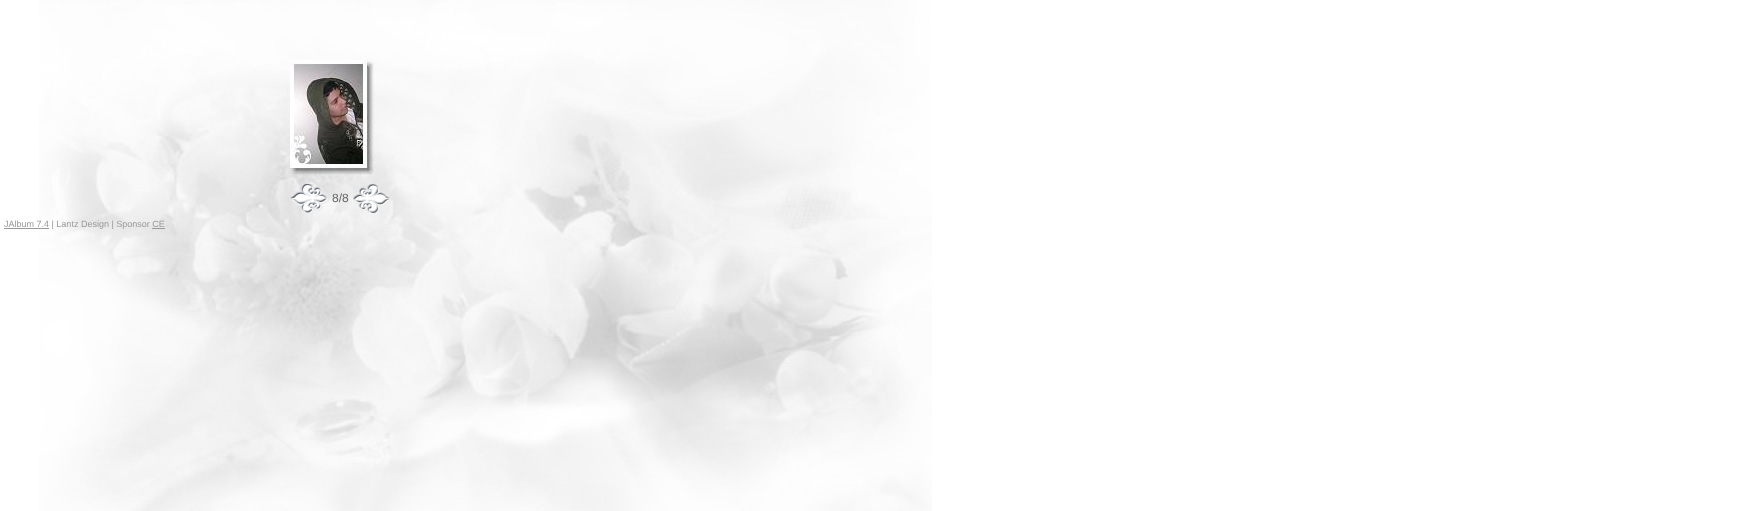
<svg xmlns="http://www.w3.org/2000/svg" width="1746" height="511">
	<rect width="100%" height="100%" fill="#FFFFFF" />
	<image x="39" y="0" width="893" height="511" href="assets/img1.png" />
	<image x="290" y="60" width="84" height="115" href="assets/img2.png" />
	<image x="290" y="184" width="38" height="29" href="assets/img3.png" />
	<text x="332" y="202" font-family="Liberation Sans" font-size="12" fill="#666666">8/8</text>
	<image x="353" y="184" width="38" height="29" href="assets/img4.png" />
	<rect x="4" y="228" width="45" height="1" fill="#999999" />
	<text x="4" y="227" font-family="Liberation Sans" font-size="9" fill="#999999">JAlbum 7.4 | Lantz Design | Sponsor CE</text>
	<rect x="152" y="228" width="13" height="1" fill="#999999" />
</svg>
